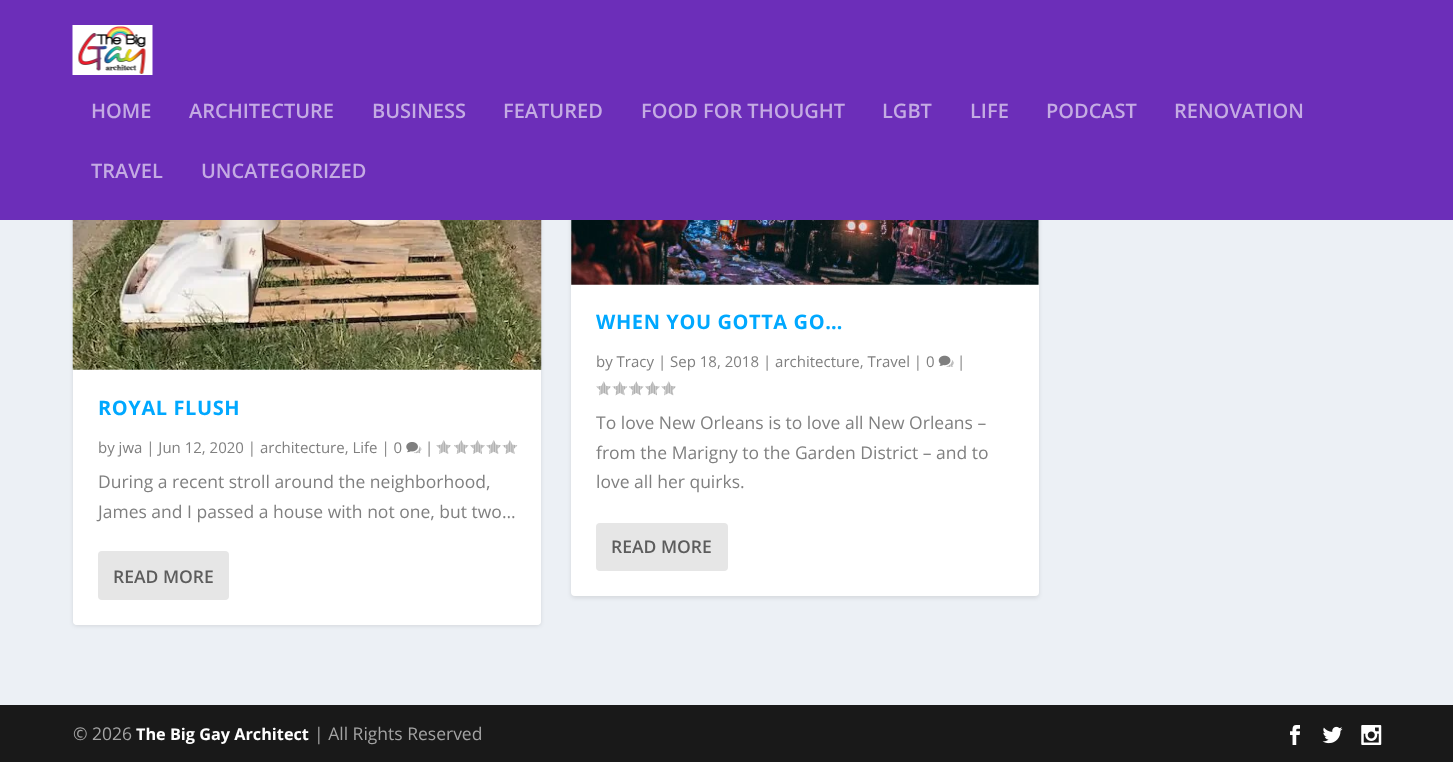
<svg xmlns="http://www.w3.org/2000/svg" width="1453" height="762">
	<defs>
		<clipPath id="clip1"><path d="M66 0H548V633H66ZM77 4H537C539 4 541 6 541 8V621C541 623 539 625 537 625H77C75 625 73 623 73 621V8C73 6 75 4 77 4Z" clip-rule="evenodd" /></clipPath>
	</defs>
	<rect width="100%" height="100%" fill="#ECF0F5" />
	<g clip-path="url(#clip1)">
		<rect x="73" y="5" width="468" height="621" rx="4" fill="#000000" fill-opacity="0.1" filter="blur(2px)" />
	</g>
	<rect x="73" y="4" width="468" height="621" rx="4" fill="#FFFFFF" />
	<rect x="571" y="5" width="468" height="593" rx="4" fill="#000000" fill-opacity="0.1" filter="blur(2px)" />
	<rect x="571" y="4" width="468" height="592" rx="4" fill="#FFFFFF" />
	<rect x="0" y="0" width="1453" height="220" fill="#6C2EB9" />
	<image x="72" y="25" width="81" height="50" href="assets/img1.png" />
	<g font-family="Open Sans" font-size="20" font-weight="600" fill="#C4ABE3">
		<text x="91" y="118">HOME</text>
		<text x="189" y="118">ARCHITECTURE</text>
		<text x="372" y="118">BUSINESS</text>
		<text x="503" y="118">FEATURED</text>
		<text x="641" y="118">FOOD FOR THOUGHT</text>
		<text x="882" y="118">LGBT</text>
		<text x="970" y="118">LIFE</text>
		<text x="1046" y="118">PODCAST</text>
		<text x="1174" y="118">RENOVATION</text>
		<text x="91" y="178">TRAVEL</text>
		<text x="201" y="178">UNCATEGORIZED</text>
	</g>
	<image x="72" y="220" width="470" height="150" href="assets/img2.png" />
	<text x="98" y="415" font-family="Open Sans" font-size="20" font-weight="700" letter-spacing="0.6" fill="#00A8FF">ROYAL FLUSH</text>
	<text x="98" y="453" font-family="Open Sans" font-size="15" fill="#808080">by jwa | Jun 12, 2020 | architecture, Life | 0</text>
	<image x="406" y="442" width="16" height="12" href="assets/img3.png" />
	<text x="425" y="453" font-family="Open Sans" font-size="15" fill="#808080">|</text>
	<image x="436" y="440" width="15" height="14" href="assets/img4.png" />
	<image x="454" y="440" width="15" height="14" href="assets/img5.png" />
	<image x="470" y="440" width="15" height="14" href="assets/img6.png" />
	<image x="486" y="440" width="15" height="14" href="assets/img4.png" />
	<image x="502" y="440" width="16" height="14" href="assets/img7.png" />
	<g font-family="Open Sans" font-size="17.5" fill="#808080">
		<text x="98" y="488">During a recent stroll around the neighborhood,</text>
		<text x="98" y="518">James and I passed a house with not one, but two...</text>
	</g>
	<rect x="98" y="551" width="131" height="49" rx="4" fill="#E6E6E6" />
	<text x="113" y="583" font-family="Open Sans" font-size="17.5" font-weight="600" fill="#5C5C5C">READ MORE</text>
	<image x="571" y="220" width="468" height="65" href="assets/img8.png" />
	<text x="596" y="329" font-family="Open Sans" font-size="20" font-weight="700" letter-spacing="0.6" fill="#00A8FF">WHEN YOU GOTTA GO…</text>
	<text x="596" y="367" font-family="Open Sans" font-size="15" fill="#808080">by Tracy | Sep 18, 2018 | architecture, Travel | 0</text>
	<image x="938" y="355" width="16" height="12" href="assets/img9.png" />
	<text x="957" y="367" font-family="Open Sans" font-size="15" fill="#808080">|</text>
	<image x="596" y="381" width="15" height="15" href="assets/img10.png" />
	<image x="612" y="381" width="16" height="15" href="assets/img11.png" />
	<image x="629" y="381" width="15" height="15" href="assets/img12.png" />
	<image x="645" y="381" width="15" height="15" href="assets/img13.png" />
	<image x="661" y="381" width="15" height="15" href="assets/img10.png" />
	<g font-family="Open Sans" font-size="17.5" fill="#808080">
		<text x="596" y="429">To love New Orleans is to love all New Orleans –</text>
		<text x="596" y="459">from the Marigny to the Garden District – and to</text>
		<text x="596" y="488">love all her quirks.</text>
	</g>
	<rect x="596" y="523" width="132" height="48" rx="4" fill="#E6E6E6" />
	<text x="611" y="553" font-family="Open Sans" font-size="17.5" font-weight="600" fill="#5C5C5C">READ MORE</text>
	<rect x="0" y="705" width="1453" height="57" fill="#191919" />
	<text x="73" y="740" font-family="Open Sans" font-size="17.5" fill="#A3A3A3">© 2026</text>
	<text x="136" y="740" font-family="Open Sans" font-size="16.25" font-weight="700" fill="#FFFFFF">The Big Gay Architect</text>
	<text x="314" y="740" font-family="Open Sans" font-size="17.5" fill="#A3A3A3">| All Rights Reserved</text>
	<image x="1290" y="725" width="10" height="20" href="assets/img14.png" />
	<image x="1322" y="726" width="21" height="18" href="assets/img15.png" />
	<image x="1361" y="725" width="21" height="20" href="assets/img16.png" />
</svg>
